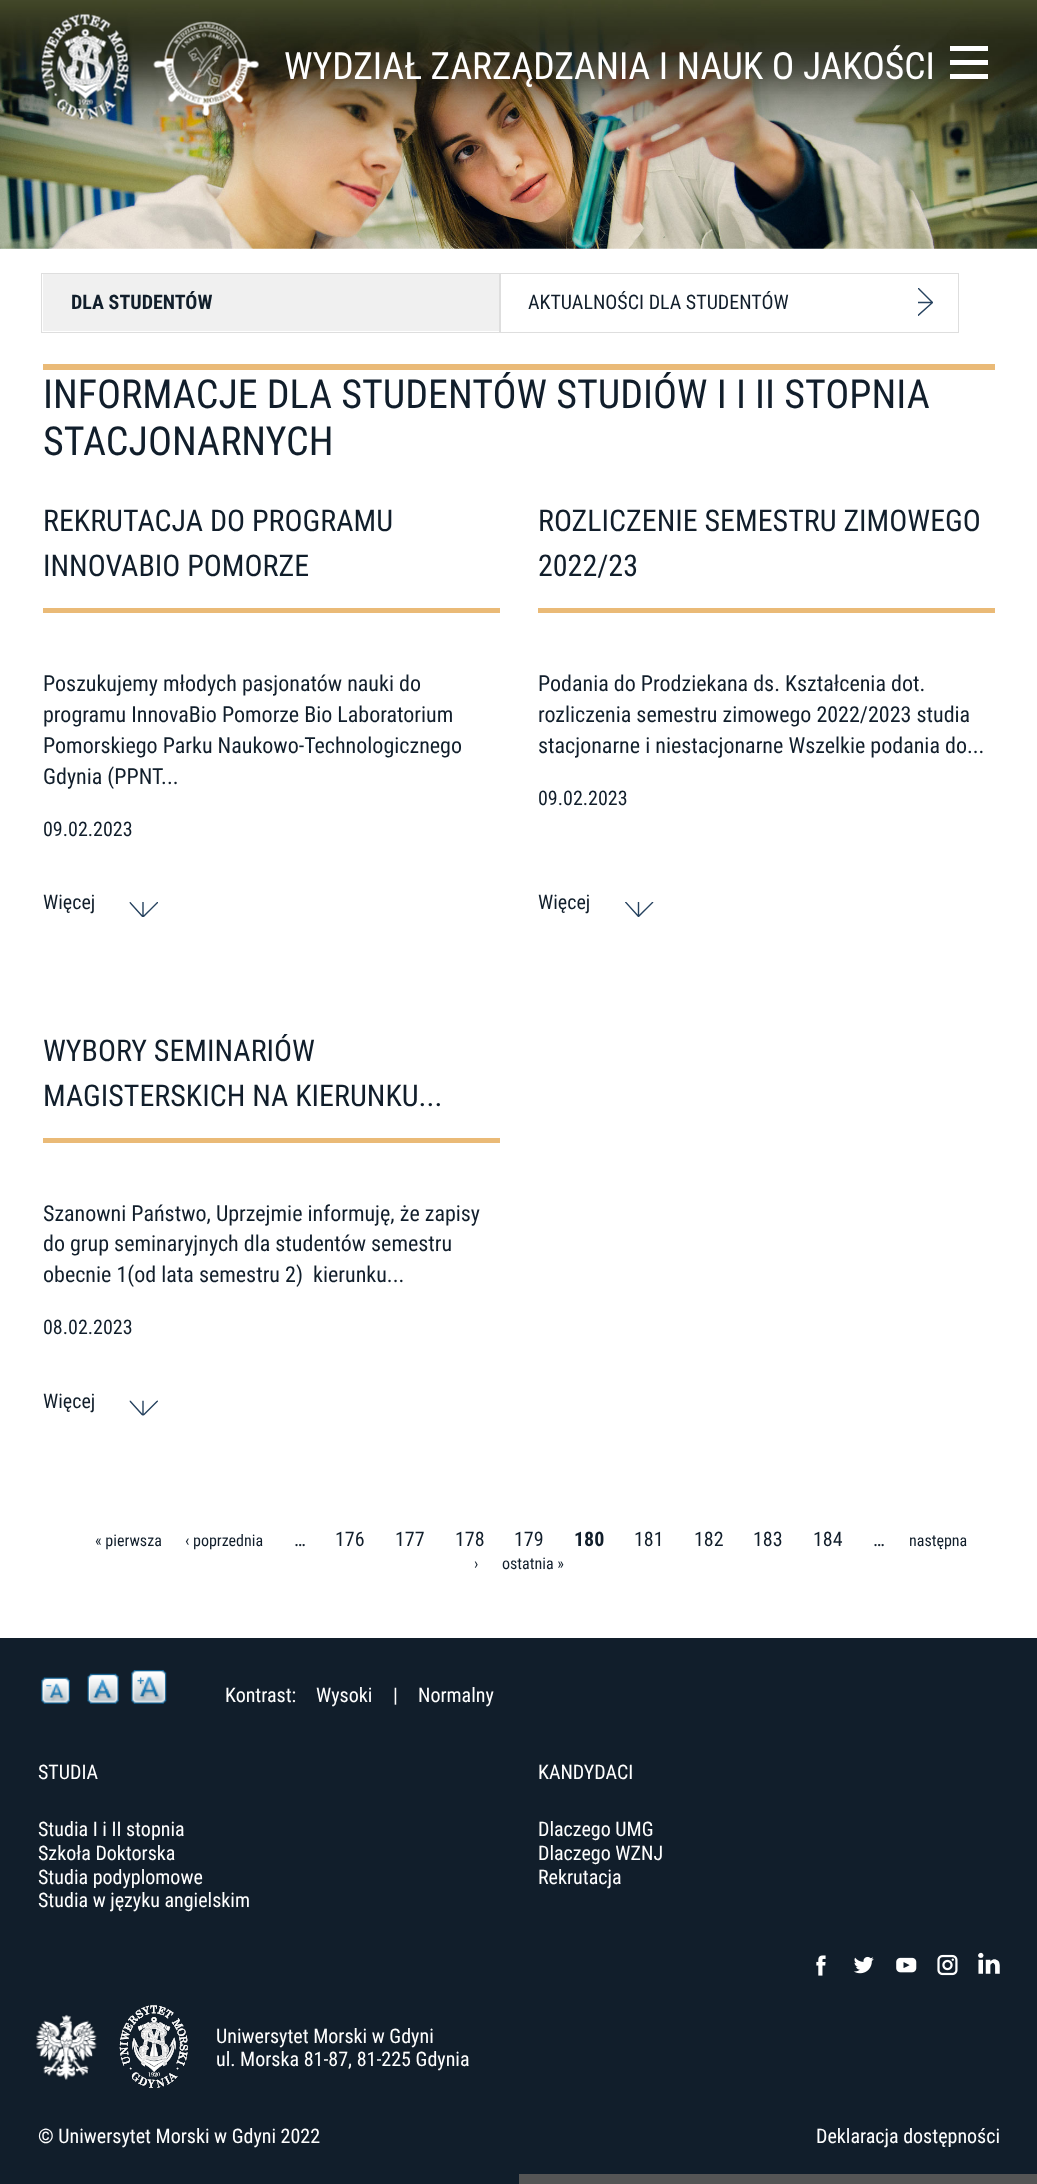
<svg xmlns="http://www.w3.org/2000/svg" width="1037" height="2184">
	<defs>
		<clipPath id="clip1"><rect x="918" y="288" width="15" height="28" /></clipPath>
		<clipPath id="clip2"><path d="M158 902V917H129.5V902Z" /></clipPath>
		<clipPath id="clip3"><path d="M653.5 902V917H625V902Z" /></clipPath>
		<clipPath id="clip4"><path d="M158 1400.5V1415.5H129.5V1400.5Z" /></clipPath>
	</defs>
	<rect width="100%" height="100%" fill="#FFFFFF" />
	<image x="0" y="0" width="1037" height="249" href="assets/img1.png" />
	<image x="40" y="14" width="89" height="106" href="assets/img2.png" />
	<image x="153" y="21" width="106" height="95" href="assets/img3.png" />
	<text x="284" y="79" font-family="Roboto Condensed" font-size="37.5" fill="#FFFFFF">WYDZIAŁ ZARZĄDZANIA I NAUK O JAKOŚCI</text>
	<rect x="950" y="46" width="38" height="5" fill="#FFFFFF" />
	<rect x="950" y="60" width="38" height="5" fill="#FFFFFF" />
	<rect x="950" y="74" width="38" height="5" fill="#FFFFFF" />
	<rect x="43" y="274" width="456" height="57" fill="#F0F0F0" />
	<rect x="41.5" y="273.5" width="459" height="59" fill="none" stroke="#DEDEDE" />
	<text x="71" y="309" font-family="Roboto Condensed" font-size="20" font-weight="700" fill="#111E2B">DLA STUDENTÓW</text>
	<g clip-path="url(#clip1)">
		<path d="M917.5 302.5H932.5L917.5 287.5L932.5 302.5L917.5 316" fill="none" stroke="#26425F" stroke-width="1.4" />
	</g>
	<rect x="499.5" y="273.5" width="459" height="59" fill="none" stroke="#DEDEDE" />
	<text x="528" y="309" font-family="Roboto Condensed" font-size="20" fill="#111E2B">AKTUALNOŚCI DLA STUDENTÓW</text>
	<rect x="43" y="364" width="952" height="6" fill="#EABA77" />
	<g font-family="Roboto Condensed" font-size="40" fill="#111E2B">
		<text x="43" y="408">INFORMACJE DLA STUDENTÓW STUDIÓW I I II STOPNIA</text>
		<text x="43" y="455">STACJONARNYCH</text>
	</g>
	<rect x="43" y="608" width="457" height="5" fill="#EABA77" />
	<g font-family="Roboto Condensed" font-size="30" fill="#111E2B">
		<text x="43" y="531">REKRUTACJA DO PROGRAMU</text>
		<text x="43" y="576">INNOVABIO POMORZE</text>
	</g>
	<g font-family="Roboto Condensed" font-size="22" fill="#111E2B">
		<text x="43" y="691">Poszukujemy młodych pasjonatów nauki do</text>
		<text x="43" y="722">programu InnovaBio Pomorze Bio Laboratorium</text>
		<text x="43" y="753">Pomorskiego Parku Naukowo-Technologicznego</text>
		<text x="43" y="784">Gdynia (PPNT...</text>
	</g>
	<g font-family="Roboto Condensed" font-size="20" fill="#111E2B">
		<text x="43" y="836">09.02.2023</text>
		<text x="43" y="909">Więcej</text>
	</g>
	<g clip-path="url(#clip2)">
		<path d="M143 902V917L158 902L143 917L129.5 902" fill="none" stroke="#26425F" stroke-width="1.4" />
	</g>
	<rect x="538" y="608" width="457" height="5" fill="#EABA77" />
	<g font-family="Roboto Condensed" font-size="30" fill="#111E2B">
		<text x="538" y="531">ROZLICZENIE SEMESTRU ZIMOWEGO</text>
		<text x="538" y="576">2022/23</text>
	</g>
	<g font-family="Roboto Condensed" font-size="22" fill="#111E2B">
		<text x="538" y="691">Podania do Prodziekana ds. Kształcenia dot.</text>
		<text x="538" y="722">rozliczenia semestru zimowego 2022/2023 studia</text>
		<text x="538" y="753">stacjonarne i niestacjonarne Wszelkie podania do...</text>
	</g>
	<g font-family="Roboto Condensed" font-size="20" fill="#111E2B">
		<text x="538" y="805">09.02.2023</text>
		<text x="538" y="909">Więcej</text>
	</g>
	<g clip-path="url(#clip3)">
		<path d="M638.5 901.5V916.5L653.5 901.5L638.5 916.5L625 901.5" fill="none" stroke="#26425F" stroke-width="1.4" />
	</g>
	<rect x="43" y="1138" width="457" height="5" fill="#EABA77" />
	<g font-family="Roboto Condensed" font-size="30" fill="#111E2B">
		<text x="43" y="1061">WYBORY SEMINARIÓW</text>
		<text x="43" y="1106">MAGISTERSKICH NA KIERUNKU...</text>
	</g>
	<g font-family="Roboto Condensed" font-size="22" fill="#111E2B">
		<text x="43" y="1221">Szanowni Państwo, Uprzejmie informuję, że zapisy</text>
		<text x="43" y="1251">do grup seminaryjnych dla studentów semestru</text>
		<text x="43" y="1282" xml:space="preserve">obecnie 1(od lata semestru 2)  kierunku...</text>
	</g>
	<g font-family="Roboto Condensed" font-size="20" fill="#111E2B">
		<text x="43" y="1334">08.02.2023</text>
		<text x="43" y="1408">Więcej</text>
	</g>
	<g clip-path="url(#clip4)">
		<path d="M143 1400.5V1415.5L158 1400.5L143 1415.5L129.5 1400.5" fill="none" stroke="#26425F" stroke-width="1.4" />
	</g>
	<g font-family="Roboto Condensed" font-size="16" fill="#111E2B">
		<text x="95" y="1546">« pierwsza</text>
		<text x="185" y="1546">‹ poprzednia</text>
	</g>
	<g font-family="Roboto Condensed" font-size="20" fill="#111E2B">
		<text x="294" y="1546">…</text>
		<text x="335" y="1546">176</text>
		<text x="395" y="1546">177</text>
		<text x="455" y="1546">178</text>
		<text x="514" y="1546">179</text>
	</g>
	<text x="574" y="1546" font-family="Roboto Condensed" font-size="20" font-weight="700" fill="#111E2B">180</text>
	<g font-family="Roboto Condensed" font-size="20" fill="#111E2B">
		<text x="634" y="1546">181</text>
		<text x="694" y="1546">182</text>
		<text x="753" y="1546">183</text>
		<text x="813" y="1546">184</text>
		<text x="873" y="1546">…</text>
	</g>
	<g font-family="Roboto Condensed" font-size="16" fill="#111E2B">
		<text x="909" y="1546">następna</text>
		<text x="474" y="1569">›</text>
		<text x="502" y="1569">ostatnia »</text>
	</g>
	<rect x="0" y="1638" width="1037" height="546" fill="#111E2B" />
	<image x="41" y="1677" width="29" height="27" href="assets/img4.png" />
	<image x="87" y="1673" width="32" height="31" href="assets/img5.png" />
	<image x="131" y="1670" width="36" height="34" href="assets/img6.png" />
	<g font-family="Roboto Condensed" font-size="20" fill="#FFFFFF">
		<text x="225" y="1702">Kontrast:</text>
		<text x="316" y="1702">Wysoki</text>
		<text x="393" y="1702">|</text>
		<text x="418" y="1702">Normalny</text>
		<text x="38" y="1779">STUDIA</text>
		<text x="38" y="1836">Studia I i II stopnia</text>
		<text x="38" y="1860">Szkoła Doktorska</text>
		<text x="38" y="1884">Studia podyplomowe</text>
		<text x="38" y="1907">Studia w języku angielskim</text>
		<text x="538" y="1779">KANDYDACI</text>
		<text x="538" y="1836">Dlaczego UMG</text>
		<text x="538" y="1860">Dlaczego WZNJ</text>
		<text x="538" y="1884">Rekrutacja</text>
	</g>
	<image x="816" y="1955" width="10" height="21" href="assets/img7.png" />
	<image x="853" y="1956" width="21" height="18" href="assets/img8.png" />
	<image x="896" y="1957" width="21" height="16" href="assets/img9.png" />
	<image x="937" y="1954" width="21" height="22" href="assets/img10.png" />
	<image x="978" y="1952" width="22" height="22" href="assets/img11.png" />
	<image x="36" y="2014" width="61" height="66" href="assets/img12.png" />
	<image x="119" y="2005" width="69" height="83" href="assets/img13.png" />
	<g font-family="Roboto Condensed" font-size="20" fill="#FFFFFF">
		<text x="216" y="2043">Uniwersytet Morski w Gdyni</text>
		<text x="216" y="2066">ul. Morska 81-87, 81-225 Gdynia</text>
		<text x="38" y="2143">© Uniwersytet Morski w Gdyni 2022</text>
		<text x="816" y="2143">Deklaracja dostępności</text>
	</g>
	<rect x="519" y="2174" width="518" height="10" fill="#555555" />
</svg>
